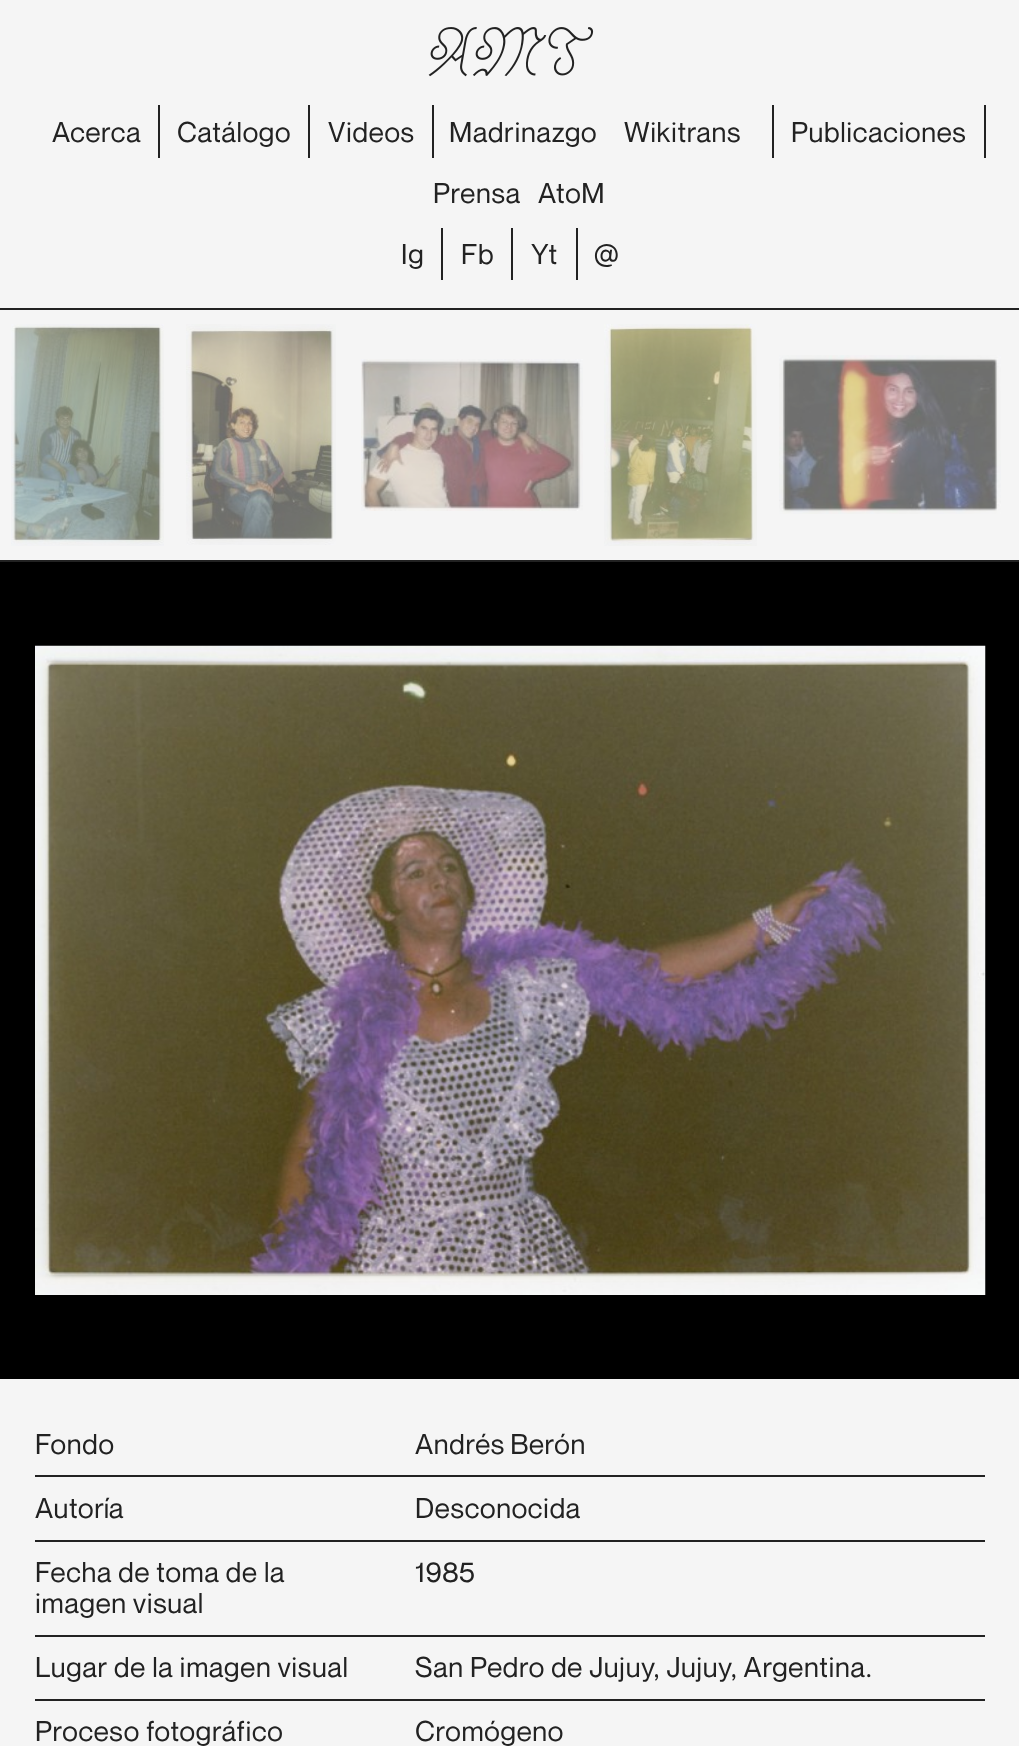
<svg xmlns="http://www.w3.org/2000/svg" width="1019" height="1746">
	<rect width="100%" height="100%" fill="#F5F5F5" />
	<rect x="0" y="308" width="1019" height="2" fill="#222222" />
	<image x="428" y="27" width="166" height="50" href="assets/img1.png" />
	<rect x="158" y="105" width="2" height="53" fill="#222222" />
	<text x="52" y="142" font-family="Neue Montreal" font-size="28" letter-spacing="0.7" fill="#222222">Acerca</text>
	<rect x="308" y="105" width="2" height="53" fill="#222222" />
	<text x="177" y="142" font-family="Neue Montreal" font-size="28" letter-spacing="0.7" fill="#222222">Catálogo</text>
	<rect x="432" y="105" width="2" height="53" fill="#222222" />
	<g font-family="Neue Montreal" font-size="28" letter-spacing="0.7" fill="#222222">
		<text x="328" y="142">Videos</text>
		<text x="449" y="142">Madrinazgo</text>
	</g>
	<rect x="772" y="105" width="2" height="53" fill="#222222" />
	<text x="624" y="142" font-family="Neue Montreal" font-size="28" letter-spacing="0.7" fill="#222222">Wikitrans</text>
	<rect x="984" y="105" width="2" height="53" fill="#222222" />
	<g font-family="Neue Montreal" font-size="28" letter-spacing="0.7" fill="#222222">
		<text x="791" y="142">Publicaciones</text>
		<text x="433" y="203">Prensa</text>
		<text x="538" y="203">AtoM</text>
	</g>
	<rect x="441" y="228" width="2" height="52" fill="#222222" />
	<text x="401" y="264" font-family="Neue Montreal" font-size="28" letter-spacing="0.7" fill="#222222">Ig</text>
	<rect x="511" y="228" width="2" height="52" fill="#222222" />
	<text x="461" y="264" font-family="Neue Montreal" font-size="28" letter-spacing="0.7" fill="#222222">Fb</text>
	<rect x="576" y="228" width="2" height="52" fill="#222222" />
	<g font-family="Neue Montreal" font-size="28" letter-spacing="0.7" fill="#222222">
		<text x="531" y="264">Yt</text>
		<text x="594" y="264">@</text>
	</g>
	<rect x="0" y="560" width="1019" height="2" fill="#222222" />
	<image x="11" y="324" width="153" height="222" href="assets/img2.png" />
	<image x="186" y="324" width="150" height="221" href="assets/img3.png" />
	<image x="361" y="359" width="222" height="152" href="assets/img4.png" />
	<image x="604" y="324" width="153" height="222" href="assets/img5.png" />
	<image x="779" y="355" width="222" height="159" href="assets/img6.png" />
	<rect x="0" y="562" width="1019" height="817" fill="#000000" />
	<image x="35" y="645" width="951" height="650" href="assets/img7.png" />
	<rect x="35" y="1475" width="950" height="2" fill="#222222" />
	<g font-family="Neue Montreal" font-size="28" letter-spacing="0.7" fill="#222222">
		<text x="35" y="1454">Fondo</text>
		<text x="415" y="1454" word-spacing="-1">Andrés Berón</text>
	</g>
	<rect x="35" y="1540" width="950" height="2" fill="#222222" />
	<g font-family="Neue Montreal" font-size="28" letter-spacing="0.7" fill="#222222">
		<text x="35" y="1518">Autoría</text>
		<text x="415" y="1518">Desconocida</text>
	</g>
	<rect x="35" y="1635" width="950" height="2" fill="#222222" />
	<g font-family="Neue Montreal" font-size="28" letter-spacing="0.7" fill="#222222">
		<text x="35" y="1582">Fecha de toma de la</text>
		<text x="35" y="1613">imagen visual</text>
		<text x="415" y="1582">1985</text>
	</g>
	<rect x="35" y="1699" width="950" height="2" fill="#222222" />
	<g font-family="Neue Montreal" font-size="28" letter-spacing="0.7" fill="#222222">
		<text x="35" y="1677">Lugar de la imagen visual</text>
		<text x="415" y="1677">San Pedro de Jujuy, Jujuy, Argentina.</text>
		<text x="35" y="1741">Proceso fotográfico</text>
		<text x="415" y="1741">Cromógeno</text>
	</g>
</svg>
